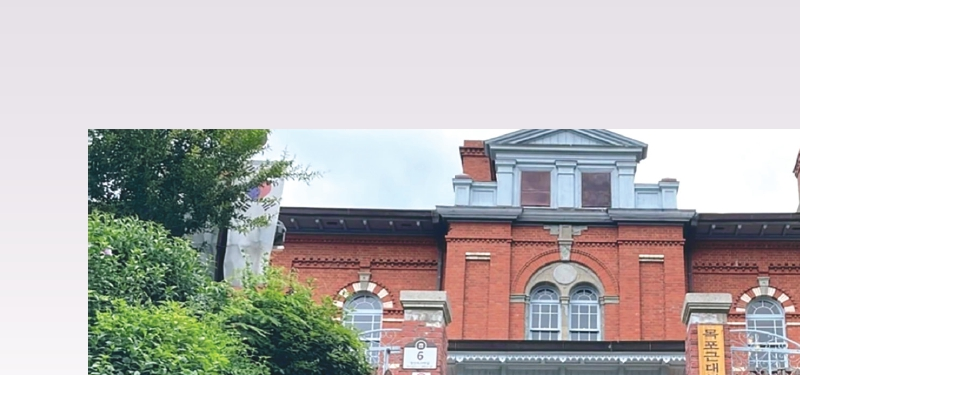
<svg xmlns="http://www.w3.org/2000/svg" width="978" height="415">
	<rect width="100%" height="100%" fill="#FFFFFF" />
	<image x="0" y="0" width="800" height="375" href="assets/img1.png" />
</svg>
